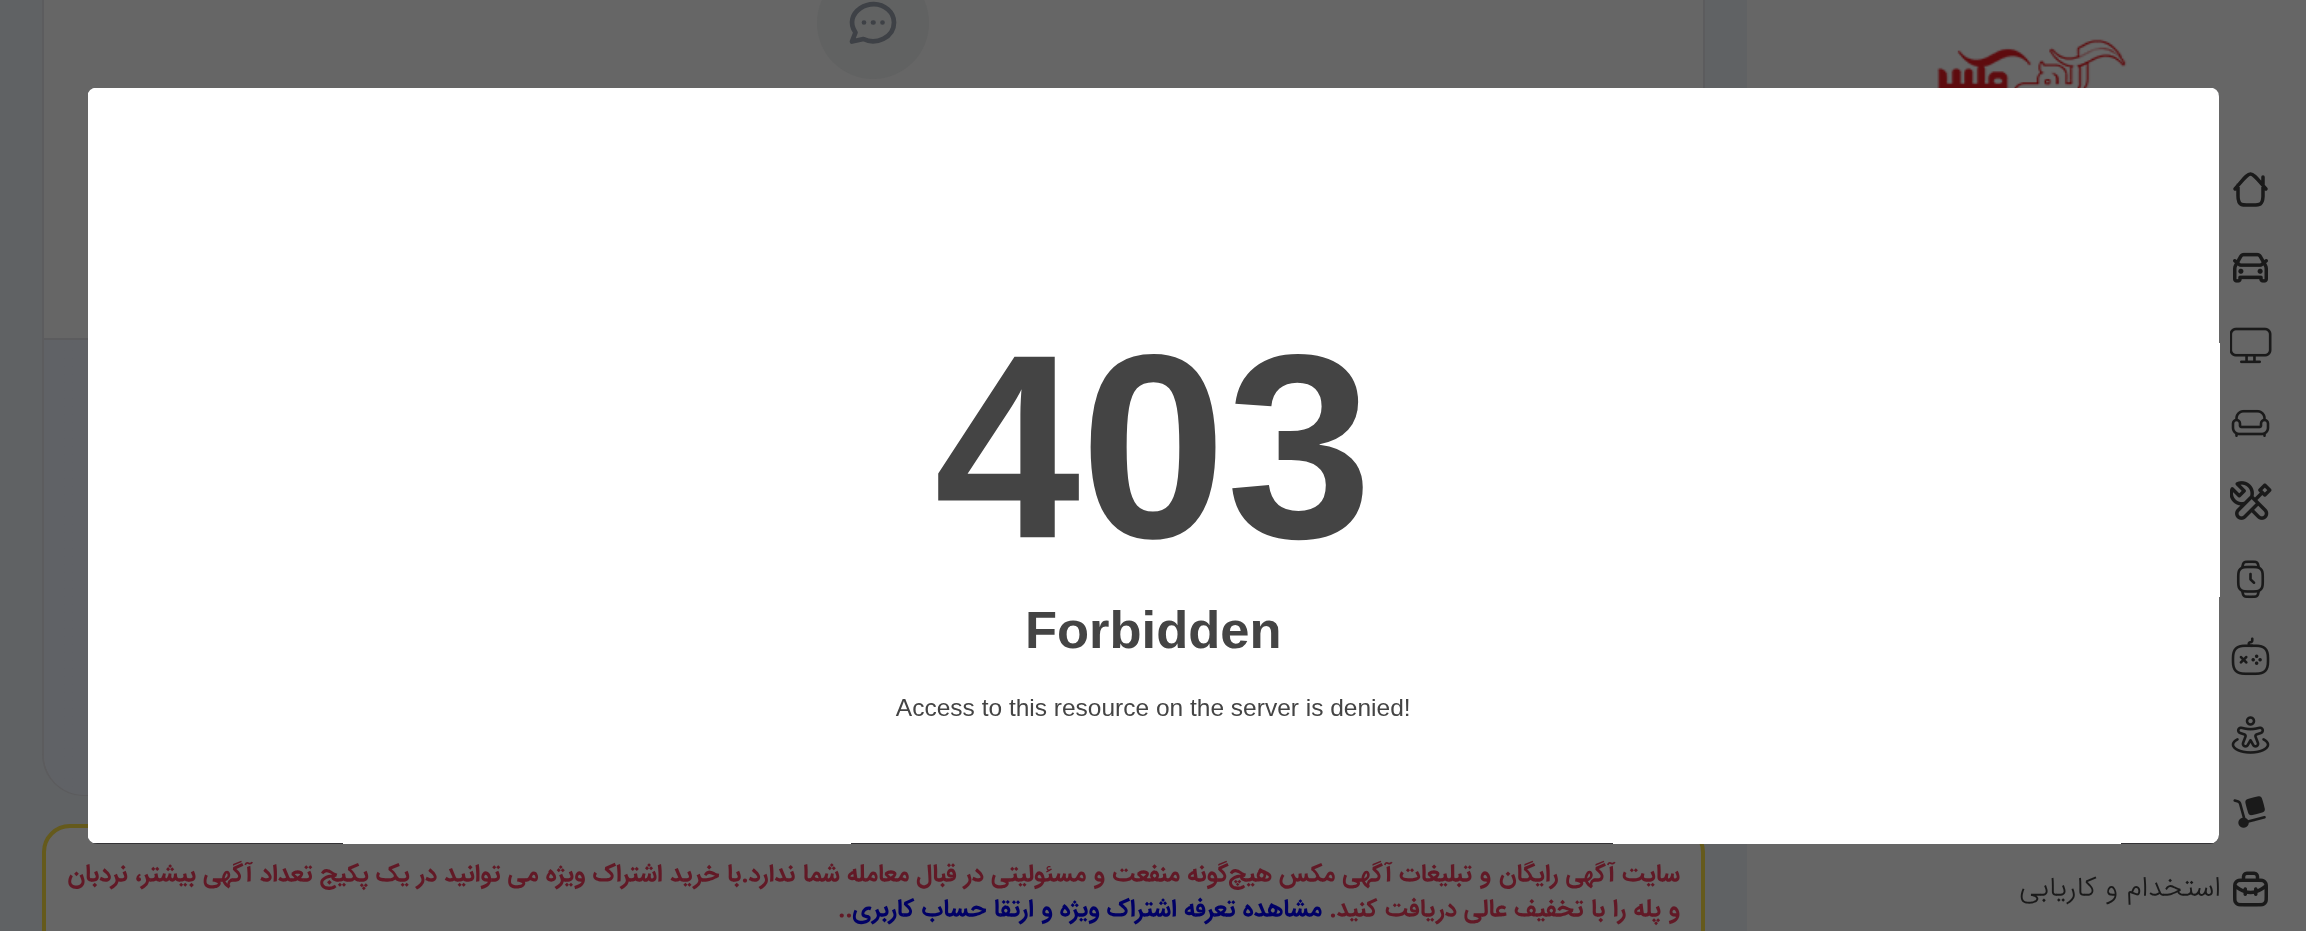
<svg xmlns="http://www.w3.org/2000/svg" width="2306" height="931">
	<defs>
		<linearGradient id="g1" gradientUnits="userSpaceOnUse" x1="44" y1="567" x2="1703" y2="567"><stop offset="0" stop-color="#606266" /><stop offset="1" stop-color="#5F6166" /></linearGradient>
	</defs>
	<rect width="100%" height="100%" fill="#666666" />
	<rect x="0" y="0" width="1747" height="931" fill="#606264" />
	<rect x="43" y="-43" width="1661" height="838" rx="41" fill="#666666" stroke="#5C5C5E" stroke-width="2" />
	<path d="M44 340H1703V755C1703 777 1685 795 1663 795H84C62 795 44 777 44 755Z" fill="url(#g1)" />
	<rect x="44" y="826" width="1659" height="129" rx="26" fill="#666666" stroke="#655A1C" stroke-width="4" />
	<rect x="88" y="88" width="2131" height="756" rx="9" fill="#17161A" />
	<image x="88" y="88" width="2132" height="756" href="assets/img1.png" />
	<image x="1937" y="39" width="190" height="49" href="assets/img2.png" />
	<path d="M2238 185V194.5C2238 198 2237.5 203 2241.5 204.5C2244 205.5 2247.5 205 2250.5 205C2259 205 2262.5 206 2263 196.5V177M2266 189C2248.5 169 2252.5 169 2235 189" fill="none" stroke="#1A1A1A" stroke-width="3.5" stroke-linecap="round" stroke-linejoin="round" />
	<image x="2233" y="252" width="35" height="31" href="assets/img3.png" />
	<image x="2230" y="327" width="42" height="37" href="assets/img4.png" />
	<image x="2231" y="409" width="39" height="28" href="assets/img5.png" />
	<image x="2230" y="481" width="42" height="39" href="assets/img6.png" />
	<image x="2236" y="560" width="29" height="39" href="assets/img7.png" />
	<image x="2231" y="637" width="39" height="39" href="assets/img8.png" />
	<image x="2231" y="716" width="39" height="38" href="assets/img9.png" />
	<image x="2233" y="796" width="33" height="32" href="assets/img10.png" />
	<image x="2233" y="871" width="35" height="36" href="assets/img11.png" />
	<text x="2221" y="896" font-family="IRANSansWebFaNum" font-size="28" font-weight="300" direction="rtl" fill="#1A1A1A">استخدام و کاریابی</text>
	<circle cx="873" cy="23" r="56" fill="#616262" />
	<path d="M864 22.5H864M873 22.5H873.5M882.5 22.5H882.5M894 22.5C894 38 875.5 45 863.5 39L852 41.5L855.5 32.5C842 13.5 871-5.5 888 9.5C892 13 894 17.5 894 22.5Z" fill="none" stroke="#3E4146" stroke-width="4.7" stroke-linecap="round" stroke-linejoin="round" />
	<rect x="44" y="338" width="44" height="2" fill="#5C5C5E" />
	<g font-family="IRANSansWebFaNum" font-size="24.5" font-weight="700" direction="rtl" fill="#621926">
		<text x="1680" y="881">سایت</text>
		<text x="1615" y="881">آگهی رایگان</text>
		<text x="1491" y="881">و تبلیغات آگهی مکس هیچ‌گونه منفعت و مسئولیتی در قبال معامله شما ندارد.با خرید اشتراک ویژه می توانید در یک پکیج تعداد آگهی بیشتر، نردبان</text>
		<text x="1680" y="916">و پله را با تخفیف عالی دریافت کنید.</text>
	</g>
	<text x="1322" y="916" font-family="IRANSansWebFaNum" font-size="24.5" font-weight="700" direction="rtl" fill="#000066">مشاهده تعرفه اشتراک ویژه و ارتقا حساب کاربری</text>
	<text x="838" y="916" font-family="IRANSansWebFaNum" font-size="24.5" font-weight="700" fill="#621926">..</text>
</svg>
